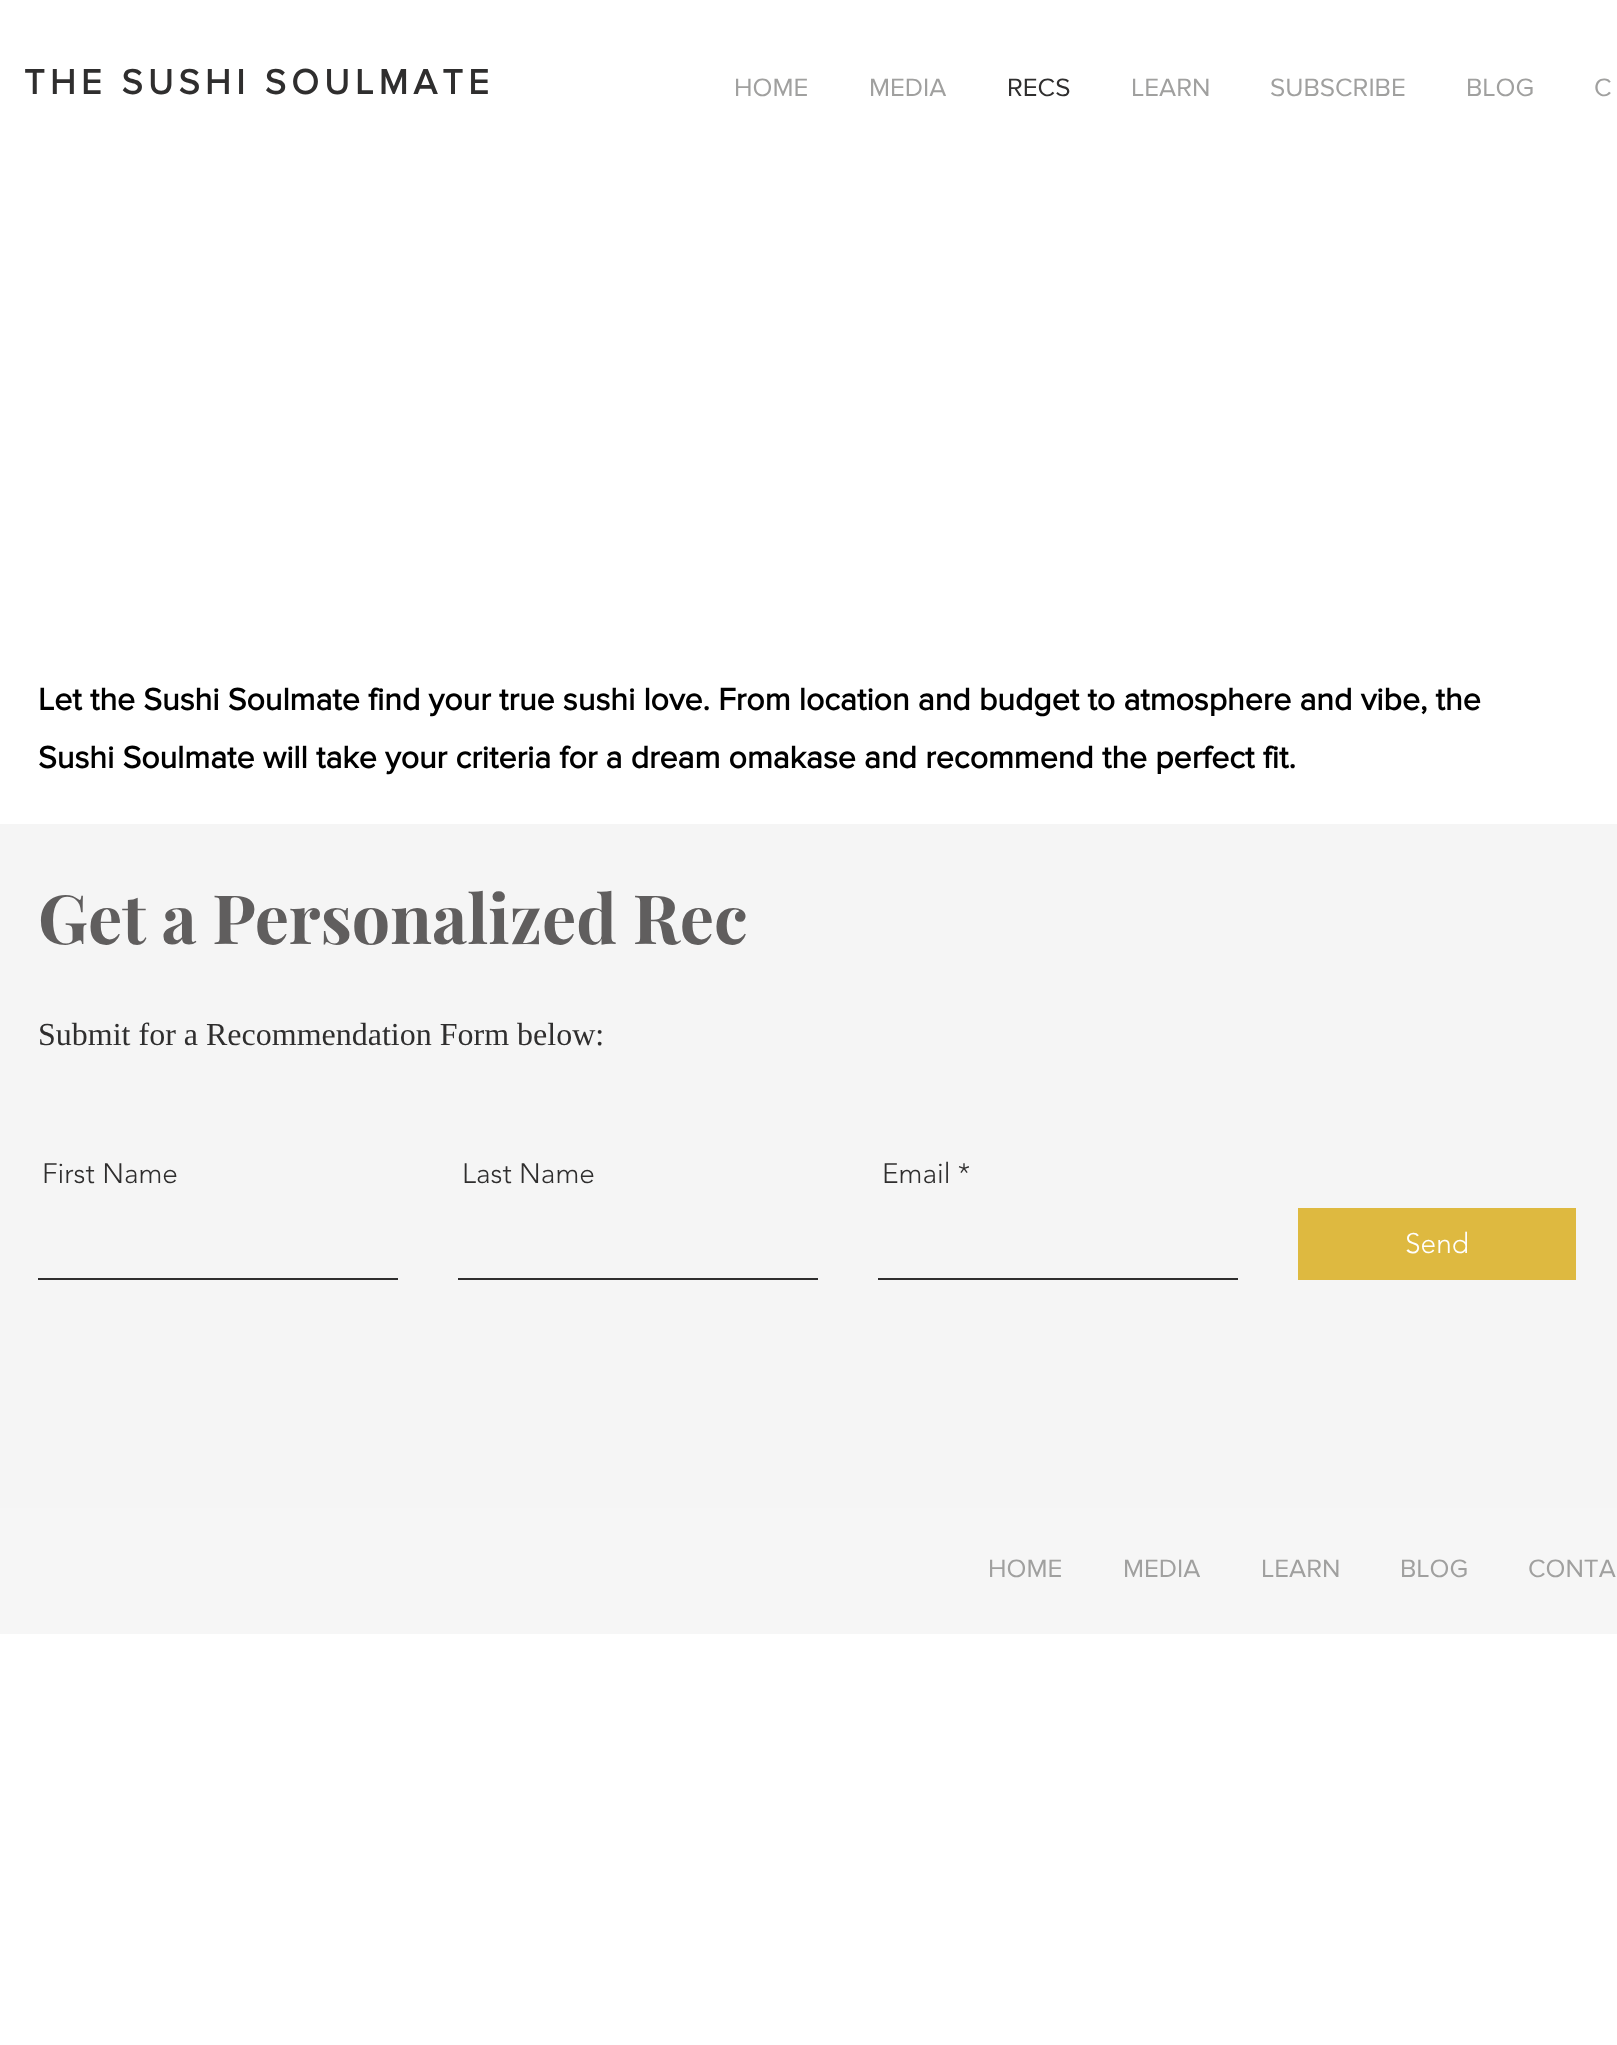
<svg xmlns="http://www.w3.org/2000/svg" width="1617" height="2045">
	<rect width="100%" height="100%" fill="#FFFFFF" />
	<text x="24" y="94" font-family="'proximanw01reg'" font-size="36" font-weight="700" letter-spacing="5.4" fill="#2F2E2E">THE SUSHI SOULMATE</text>
	<g font-family="'proximanw01reg'" font-size="26" fill="#A0A09F">
		<text x="734" y="96">HOME</text>
		<text x="869" y="96">MEDIA</text>
	</g>
	<text x="1007" y="96" font-family="'proximanw01reg'" font-size="26" fill="#2F2E2E">RECS</text>
	<g font-family="'proximanw01reg'" font-size="26" fill="#A0A09F">
		<text x="1131" y="96">LEARN</text>
		<text x="1270" y="96">SUBSCRIBE</text>
		<text x="1466" y="96">BLOG</text>
		<text x="1594" y="96">C</text>
	</g>
	<g font-family="'proximanw01reg'" font-size="32" font-weight="700" fill="#000000">
		<text x="38" y="710">Let the Sushi Soulmate find your true sushi love. From location and budget to atmosphere and vibe, the</text>
		<text x="38" y="768">Sushi Soulmate will take your criteria for a dream omakase and recommend the perfect fit.</text>
	</g>
	<rect x="0" y="824" width="1617" height="684" fill="#F5F5F5" />
	<text x="38" y="944" font-family="Playfair Display" font-size="68" font-weight="700" fill="#605E5E">Get a Personalized Rec</text>
	<text x="38" y="1045" font-family="Liberation Serif" font-size="32" fill="#2F2E2E">Submit for a Recommendation Form below:</text>
	<text x="42" y="1183" font-family="'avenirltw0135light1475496'" font-size="28" font-weight="300" fill="#2F2E2E">First Name</text>
	<rect x="38" y="1278" width="360" height="2" fill="#2F2E2E" />
	<text x="462" y="1183" font-family="'avenirltw0135light1475496'" font-size="28" font-weight="300" fill="#2F2E2E">Last Name</text>
	<rect x="458" y="1278" width="360" height="2" fill="#2F2E2E" />
	<text x="882" y="1183" font-family="'avenirltw0135light1475496'" font-size="28" font-weight="300" fill="#2F2E2E">Email *</text>
	<rect x="878" y="1278" width="360" height="2" fill="#2F2E2E" />
	<rect x="1298" y="1208" width="278" height="72" fill="#DEB940" />
	<text x="1405" y="1253" font-family="'avenirltw0135light1475496'" font-size="28" font-weight="300" fill="#FFFFFF">Send</text>
	<rect x="0" y="1508" width="1617" height="126" fill="#F6F6F6" />
	<g font-family="'proximanw01reg'" font-size="26" fill="#A0A09F">
		<text x="988" y="1577">HOME</text>
		<text x="1123" y="1577">MEDIA</text>
		<text x="1261" y="1577">LEARN</text>
		<text x="1400" y="1577">BLOG</text>
		<text x="1528" y="1577">CONTA</text>
	</g>
</svg>
